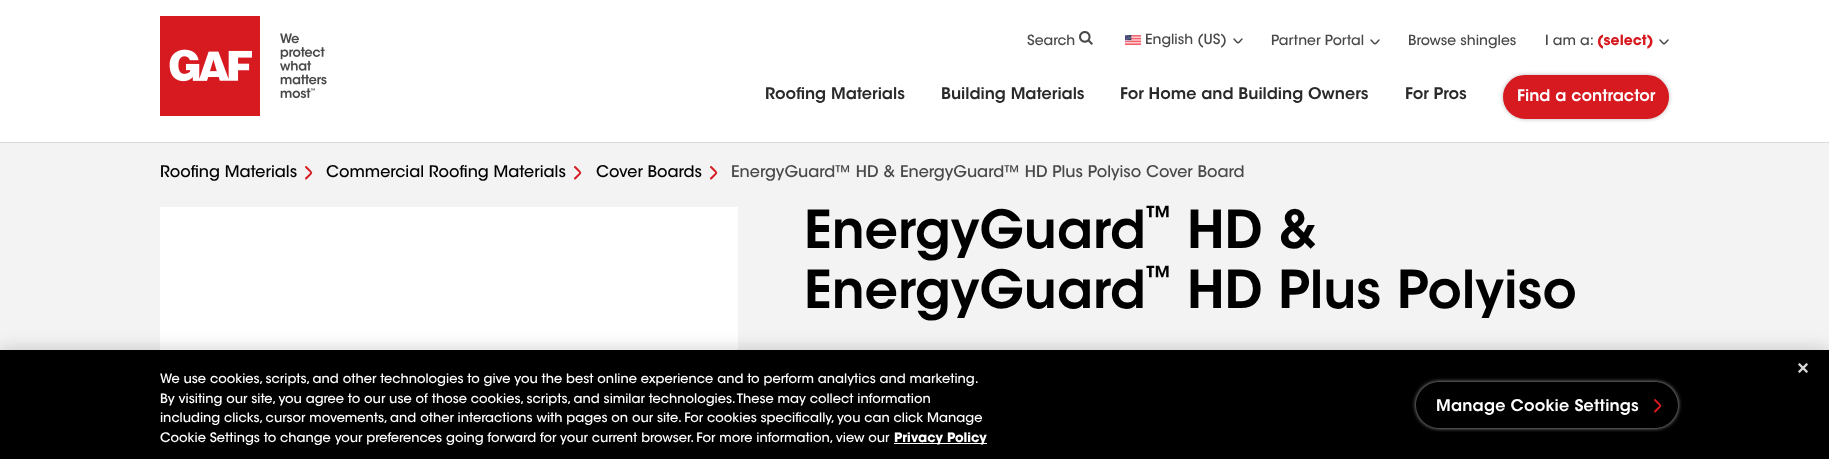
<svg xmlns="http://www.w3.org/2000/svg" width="1829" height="459">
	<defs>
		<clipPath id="clip1"><path d="M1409 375H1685V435H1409ZM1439 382H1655C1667.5 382 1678 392.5 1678 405C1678 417.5 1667.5 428 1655 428H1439C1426.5 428 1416 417.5 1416 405C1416 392.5 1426.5 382 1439 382Z" clip-rule="evenodd" /></clipPath>
	</defs>
	<rect width="100%" height="100%" fill="#F3F3F3" />
	<rect x="0" y="0" width="1829" height="142" fill="#FFFFFF" />
	<rect x="0" y="142" width="1829" height="1" fill="#DCDCDC" />
	<image x="160" y="16" width="167" height="100" href="assets/img1.png" />
	<text x="1027" y="45" font-family="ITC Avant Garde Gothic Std" font-size="14" font-weight="500" fill="#494949">Search</text>
	<image x="1079" y="31" width="14" height="14" href="assets/img2.png" />
	<image x="1125" y="35" width="16" height="10" href="assets/img3.png" />
	<text x="1145" y="44" font-family="ITC Avant Garde Gothic Std" font-size="14" font-weight="500" fill="#494949">English (US)</text>
	<path d="M1234 39C1239 44 1237 44 1242 39" fill="none" stroke="#494949" stroke-width="1.5" stroke-linecap="round" />
	<text x="1271" y="45" font-family="ITC Avant Garde Gothic Std" font-size="14" font-weight="500" fill="#494949">Partner Portal</text>
	<path d="M1371 40C1376 45 1374 45 1379 40" fill="none" stroke="#494949" stroke-width="1.5" stroke-linecap="round" />
	<g font-family="ITC Avant Garde Gothic Std" font-size="14" font-weight="500" fill="#494949">
		<text x="1408" y="45">Browse shingles</text>
		<text x="1545" y="45">I am a:</text>
	</g>
	<text x="1597" y="45" font-family="ITC Avant Garde Gothic Std" font-size="14" font-weight="700" fill="#D71920">(select)</text>
	<path d="M1660 40C1665 45 1663 45 1668 40" fill="none" stroke="#494949" stroke-width="1.5" stroke-linecap="round" />
	<g font-family="ITC Avant Garde Gothic Std" font-size="16" font-weight="600" fill="#2A2A2A">
		<text x="765" y="99">Roofing Materials</text>
		<text x="941" y="99">Building Materials</text>
		<text x="1120" y="99">For Home and Building Owners</text>
		<text x="1405" y="99">For Pros</text>
	</g>
	<rect x="1503" y="75" width="166" height="44" rx="22" fill="#B7B7B7" filter="blur(2px)" />
	<rect x="1504" y="76" width="164" height="42" rx="21" fill="#D71920" stroke="#D71920" stroke-width="2" />
	<text x="1517" y="101" font-family="ITC Avant Garde Gothic Std" font-size="16" font-weight="600" fill="#FFFFFF">Find a contractor</text>
	<text x="160" y="177" font-family="ITC Avant Garde Gothic Std" font-size="16" font-weight="500" fill="#000000">Roofing Materials</text>
	<path d="M306 178.5C313 171.5 313 174 306 167" fill="none" stroke="#D71920" stroke-width="2" stroke-linecap="round" />
	<text x="326" y="177" font-family="ITC Avant Garde Gothic Std" font-size="16" font-weight="500" fill="#000000">Commercial Roofing Materials</text>
	<path d="M575 178.5C582 171.5 582 174 575 167" fill="none" stroke="#D71920" stroke-width="2" stroke-linecap="round" />
	<text x="596" y="177" font-family="ITC Avant Garde Gothic Std" font-size="16" font-weight="500" fill="#000000">Cover Boards</text>
	<path d="M711 178.5C718 171.5 718 174 711 167" fill="none" stroke="#D71920" stroke-width="2" stroke-linecap="round" />
	<text x="731" y="177" font-family="ITC Avant Garde Gothic Std" font-size="16" font-weight="500" fill="#494949">EnergyGuard™ HD &amp; EnergyGuard™ HD Plus Polyiso Cover Board</text>
	<image x="160" y="207" width="578" height="143" href="assets/img4.png" />
	<text x="804" y="248" font-family="ITC Avant Garde Gothic Std" font-size="52" font-weight="600" fill="#000000">EnergyGuard</text>
	<text x="1146" y="225" font-family="ITC Avant Garde Gothic Std" font-size="26" font-weight="600" fill="#000000">™</text>
	<g font-family="ITC Avant Garde Gothic Std" font-size="52" font-weight="600" fill="#000000">
		<text x="1187" y="248">HD &amp;</text>
		<text x="804" y="308">EnergyGuard</text>
	</g>
	<text x="1146" y="285" font-family="ITC Avant Garde Gothic Std" font-size="26" font-weight="600" fill="#000000">™</text>
	<text x="1187" y="308" font-family="ITC Avant Garde Gothic Std" font-size="52" font-weight="600" fill="#000000">HD Plus Polyiso</text>
	<rect x="0" y="350" width="1829" height="109" fill="#000000" fill-opacity="0.2" filter="blur(9px)" />
	<rect x="0" y="350" width="1829" height="109" fill="#000000" />
	<image x="1798" y="363" width="10" height="10" href="assets/img5.png" />
	<g font-family="ITC Avant Garde Gothic Std" font-size="13" font-weight="500" fill="#FFFFFF">
		<text x="160" y="383">We use cookies, scripts, and other technologies to give you the best online experience and to perform analytics and marketing.</text>
		<text x="160" y="403">By visiting our site, you agree to our use of those cookies, scripts, and similar technologies. These may collect information</text>
		<text x="160" y="422">including clicks, cursor movements, and other interactions with pages on our site. For cookies specifically, you can click Manage</text>
		<text x="160" y="442">Cookie Settings to change your preferences going forward for your current browser. For more information, view our</text>
	</g>
	<rect x="894" y="443" width="93" height="1" fill="#FFFFFF" />
	<text x="894" y="442" font-family="ITC Avant Garde Gothic Std" font-size="13" font-weight="700" fill="#FFFFFF">Privacy Policy</text>
	<g clip-path="url(#clip1)">
		<rect x="1416" y="382" width="262" height="46" rx="23" fill="#B7B7B7" filter="blur(2px)" />
	</g>
	<path d="M1655 411.5C1662 404.5 1662 407 1655 400" fill="none" stroke="#D71920" stroke-width="2" stroke-linecap="round" />
	<text x="1436" y="411" font-family="ITC Avant Garde Gothic Std" font-size="16" font-weight="600" letter-spacing="0.2" fill="#FFFFFF">Manage Cookie Settings</text>
</svg>
